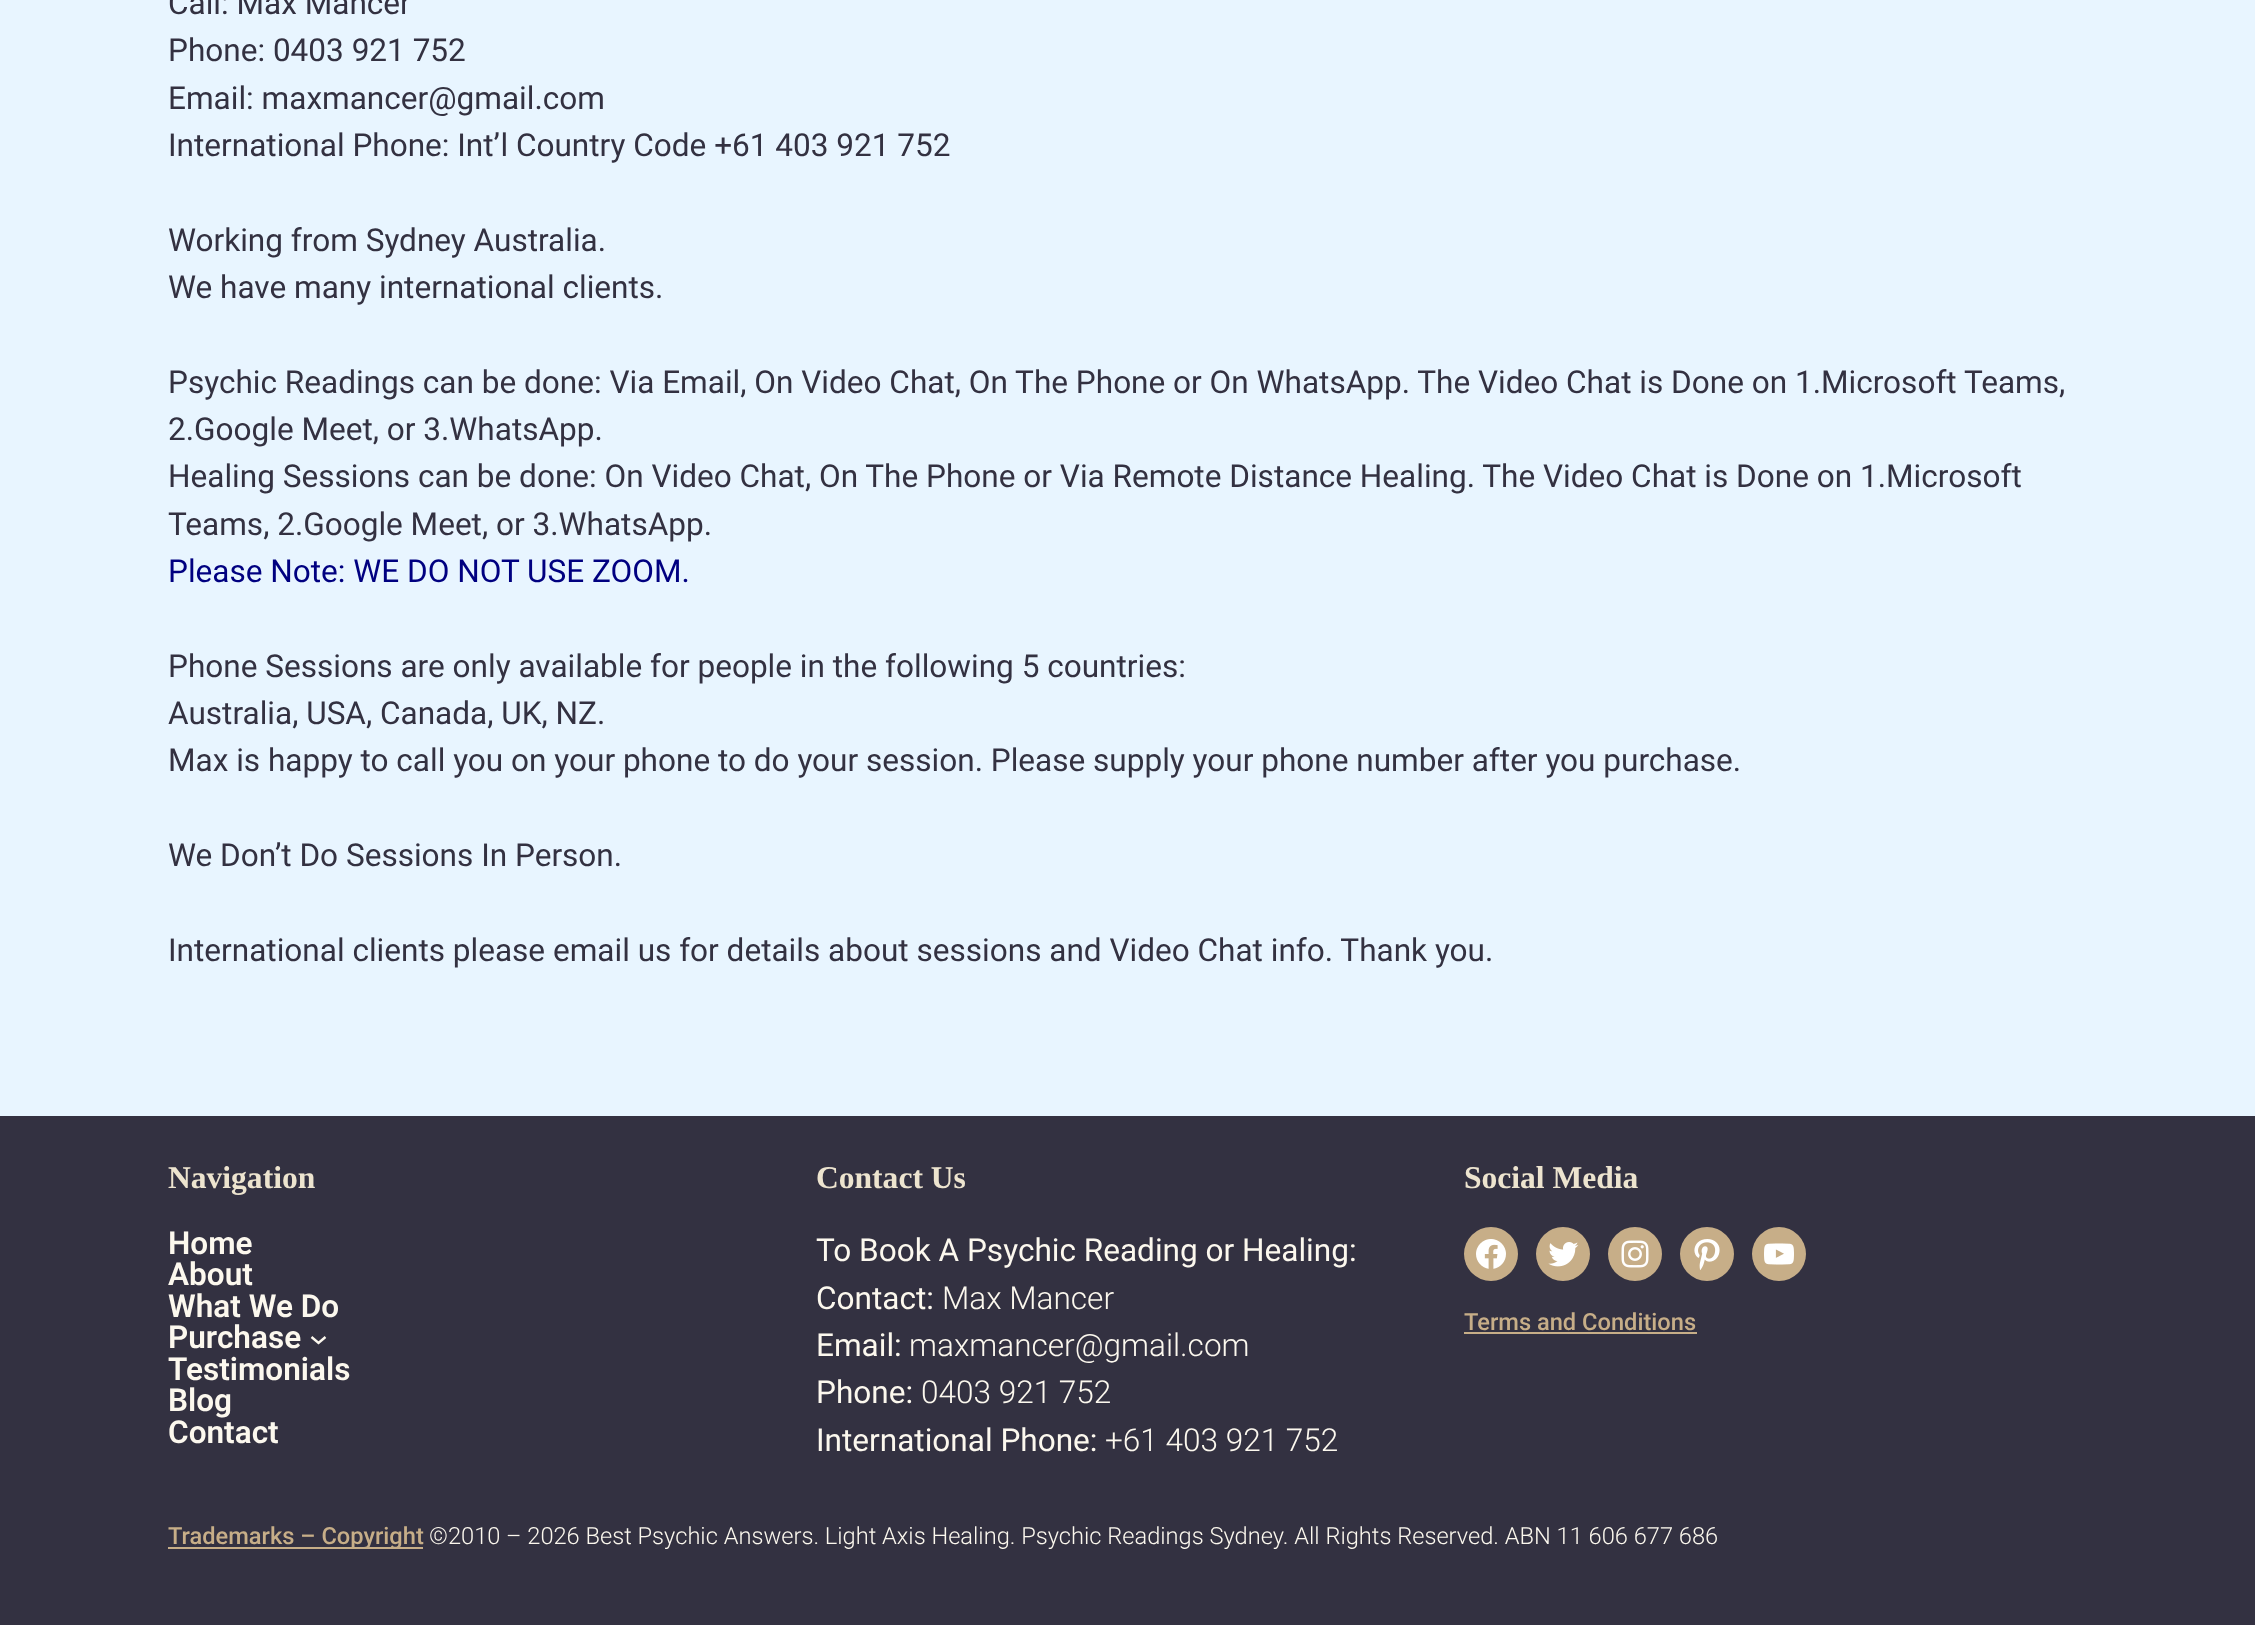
<svg xmlns="http://www.w3.org/2000/svg" width="2255" height="1625">
	<rect width="100%" height="100%" fill="#E8F5FF" />
	<g font-family="Roboto" font-size="31.55" fill="#333141">
		<text x="168" y="14">Call: Max Mancer</text>
		<text x="168" y="61">Phone: 0403 921 752</text>
		<text x="168" y="109">Email: maxmancer@gmail.com</text>
		<text x="168" y="156">International Phone: Int’l Country Code +61 403 921 752</text>
		<text x="168" y="251">Working from Sydney Australia.</text>
		<text x="168" y="298">We have many international clients.</text>
		<text x="168" y="393">Psychic Readings can be done: Via Email, On Video Chat, On The Phone or On WhatsApp. The Video Chat is Done on 1.Microsoft Teams,</text>
		<text x="168" y="440">2.Google Meet, or 3.WhatsApp.</text>
		<text x="168" y="487">Healing Sessions can be done: On Video Chat, On The Phone or Via Remote Distance Healing. The Video Chat is Done on 1.Microsoft</text>
		<text x="168" y="535">Teams, 2.Google Meet, or 3.WhatsApp.</text>
	</g>
	<text x="168" y="582" font-family="Roboto" font-size="31.55" fill="#000080">Please Note: WE DO NOT USE ZOOM.</text>
	<g font-family="Roboto" font-size="31.55" fill="#333141">
		<text x="168" y="677">Phone Sessions are only available for people in the following 5 countries:</text>
		<text x="168" y="724">Australia, USA, Canada, UK, NZ.</text>
		<text x="168" y="771">Max is happy to call you on your phone to do your session. Please supply your phone number after you purchase.</text>
		<text x="168" y="866">We Don’t Do Sessions In Person.</text>
		<text x="168" y="961">International clients please email us for details about sessions and Video Chat info. Thank you.</text>
	</g>
	<rect x="0" y="1116" width="2255" height="509" fill="#333141" />
	<text x="168" y="1188" font-family="Liberation Serif" font-size="31.55" font-weight="700" fill="#EDE4CF">Navigation</text>
	<g font-family="Roboto" font-size="31.55" font-weight="600" fill="#FCF8EE">
		<text x="168" y="1254">Home</text>
		<text x="168" y="1285">About</text>
		<text x="168" y="1317">What We Do</text>
		<text x="168" y="1348">Purchase</text>
	</g>
	<path d="M311.5 1337L318.5 1343L325.5 1337" fill="none" stroke="#FCF8EE" stroke-width="2.4" />
	<g font-family="Roboto" font-size="31.55" font-weight="600" fill="#FCF8EE">
		<text x="168" y="1380">Testimonials</text>
		<text x="168" y="1411">Blog</text>
		<text x="168" y="1443">Contact</text>
	</g>
	<text x="816" y="1188" font-family="Liberation Serif" font-size="31.55" font-weight="700" fill="#EDE4CF">Contact Us</text>
	<g font-family="Roboto" font-size="31.55" fill="#FCF8EE">
		<text x="816" y="1261">To Book A Psychic Reading or Healing:</text>
		<text x="816" y="1309">Contact:</text>
	</g>
	<text x="942" y="1309" font-family="Roboto" font-size="31.55" font-weight="300" fill="#FCF8EE">Max Mancer</text>
	<text x="816" y="1356" font-family="Roboto" font-size="31.55" fill="#FCF8EE">Email:</text>
	<text x="909" y="1356" font-family="Roboto" font-size="31.55" font-weight="300" fill="#FCF8EE">maxmancer@gmail.com</text>
	<text x="816" y="1403" font-family="Roboto" font-size="31.55" fill="#FCF8EE">Phone:</text>
	<text x="921" y="1403" font-family="Roboto" font-size="31.55" font-weight="300" fill="#FCF8EE">0403 921 752</text>
	<text x="816" y="1451" font-family="Roboto" font-size="31.55" fill="#FCF8EE">International Phone:</text>
	<text x="1105" y="1451" font-family="Roboto" font-size="31.55" font-weight="300" fill="#FCF8EE">+61 403 921 752</text>
	<text x="1464" y="1188" font-family="Liberation Serif" font-size="31.55" font-weight="700" fill="#EDE4CF">Social Media</text>
	<circle cx="1491" cy="1254" r="27" fill="#C7AE88" />
	<image x="1476" y="1239" width="30" height="30" href="assets/img1.png" />
	<circle cx="1563" cy="1254" r="27" fill="#C7AE88" />
	<image x="1548" y="1242" width="31" height="25" href="assets/img2.png" />
	<circle cx="1635" cy="1254" r="27" fill="#C7AE88" />
	<image x="1621" y="1240" width="28" height="28" href="assets/img3.png" />
	<circle cx="1707" cy="1254" r="27" fill="#C7AE88" />
	<image x="1694" y="1239" width="26" height="31" href="assets/img4.png" />
	<circle cx="1779" cy="1254" r="27" fill="#C7AE88" />
	<image x="1764" y="1243" width="30" height="22" href="assets/img5.png" />
	<text x="1464" y="1330" font-family="Roboto" font-size="23.65" font-weight="500" fill="#C7AE88">Terms and Conditions</text>
	<rect x="1464" y="1332" width="233" height="2" fill="#C7AE88" />
	<rect x="168" y="1547" width="255" height="2" fill="#C7AE88" />
	<text x="168" y="1544" font-family="Roboto" font-size="23.65" font-weight="500" fill="#C7AE88">Trademarks – Copyright</text>
	<text x="429" y="1544" font-family="Roboto" font-size="23.65" font-weight="300" fill="#FCF8EE">©2010 – 2026 Best Psychic Answers. Light Axis Healing. Psychic Readings Sydney. All Rights Reserved. ABN 11 606 677 686</text>
</svg>
